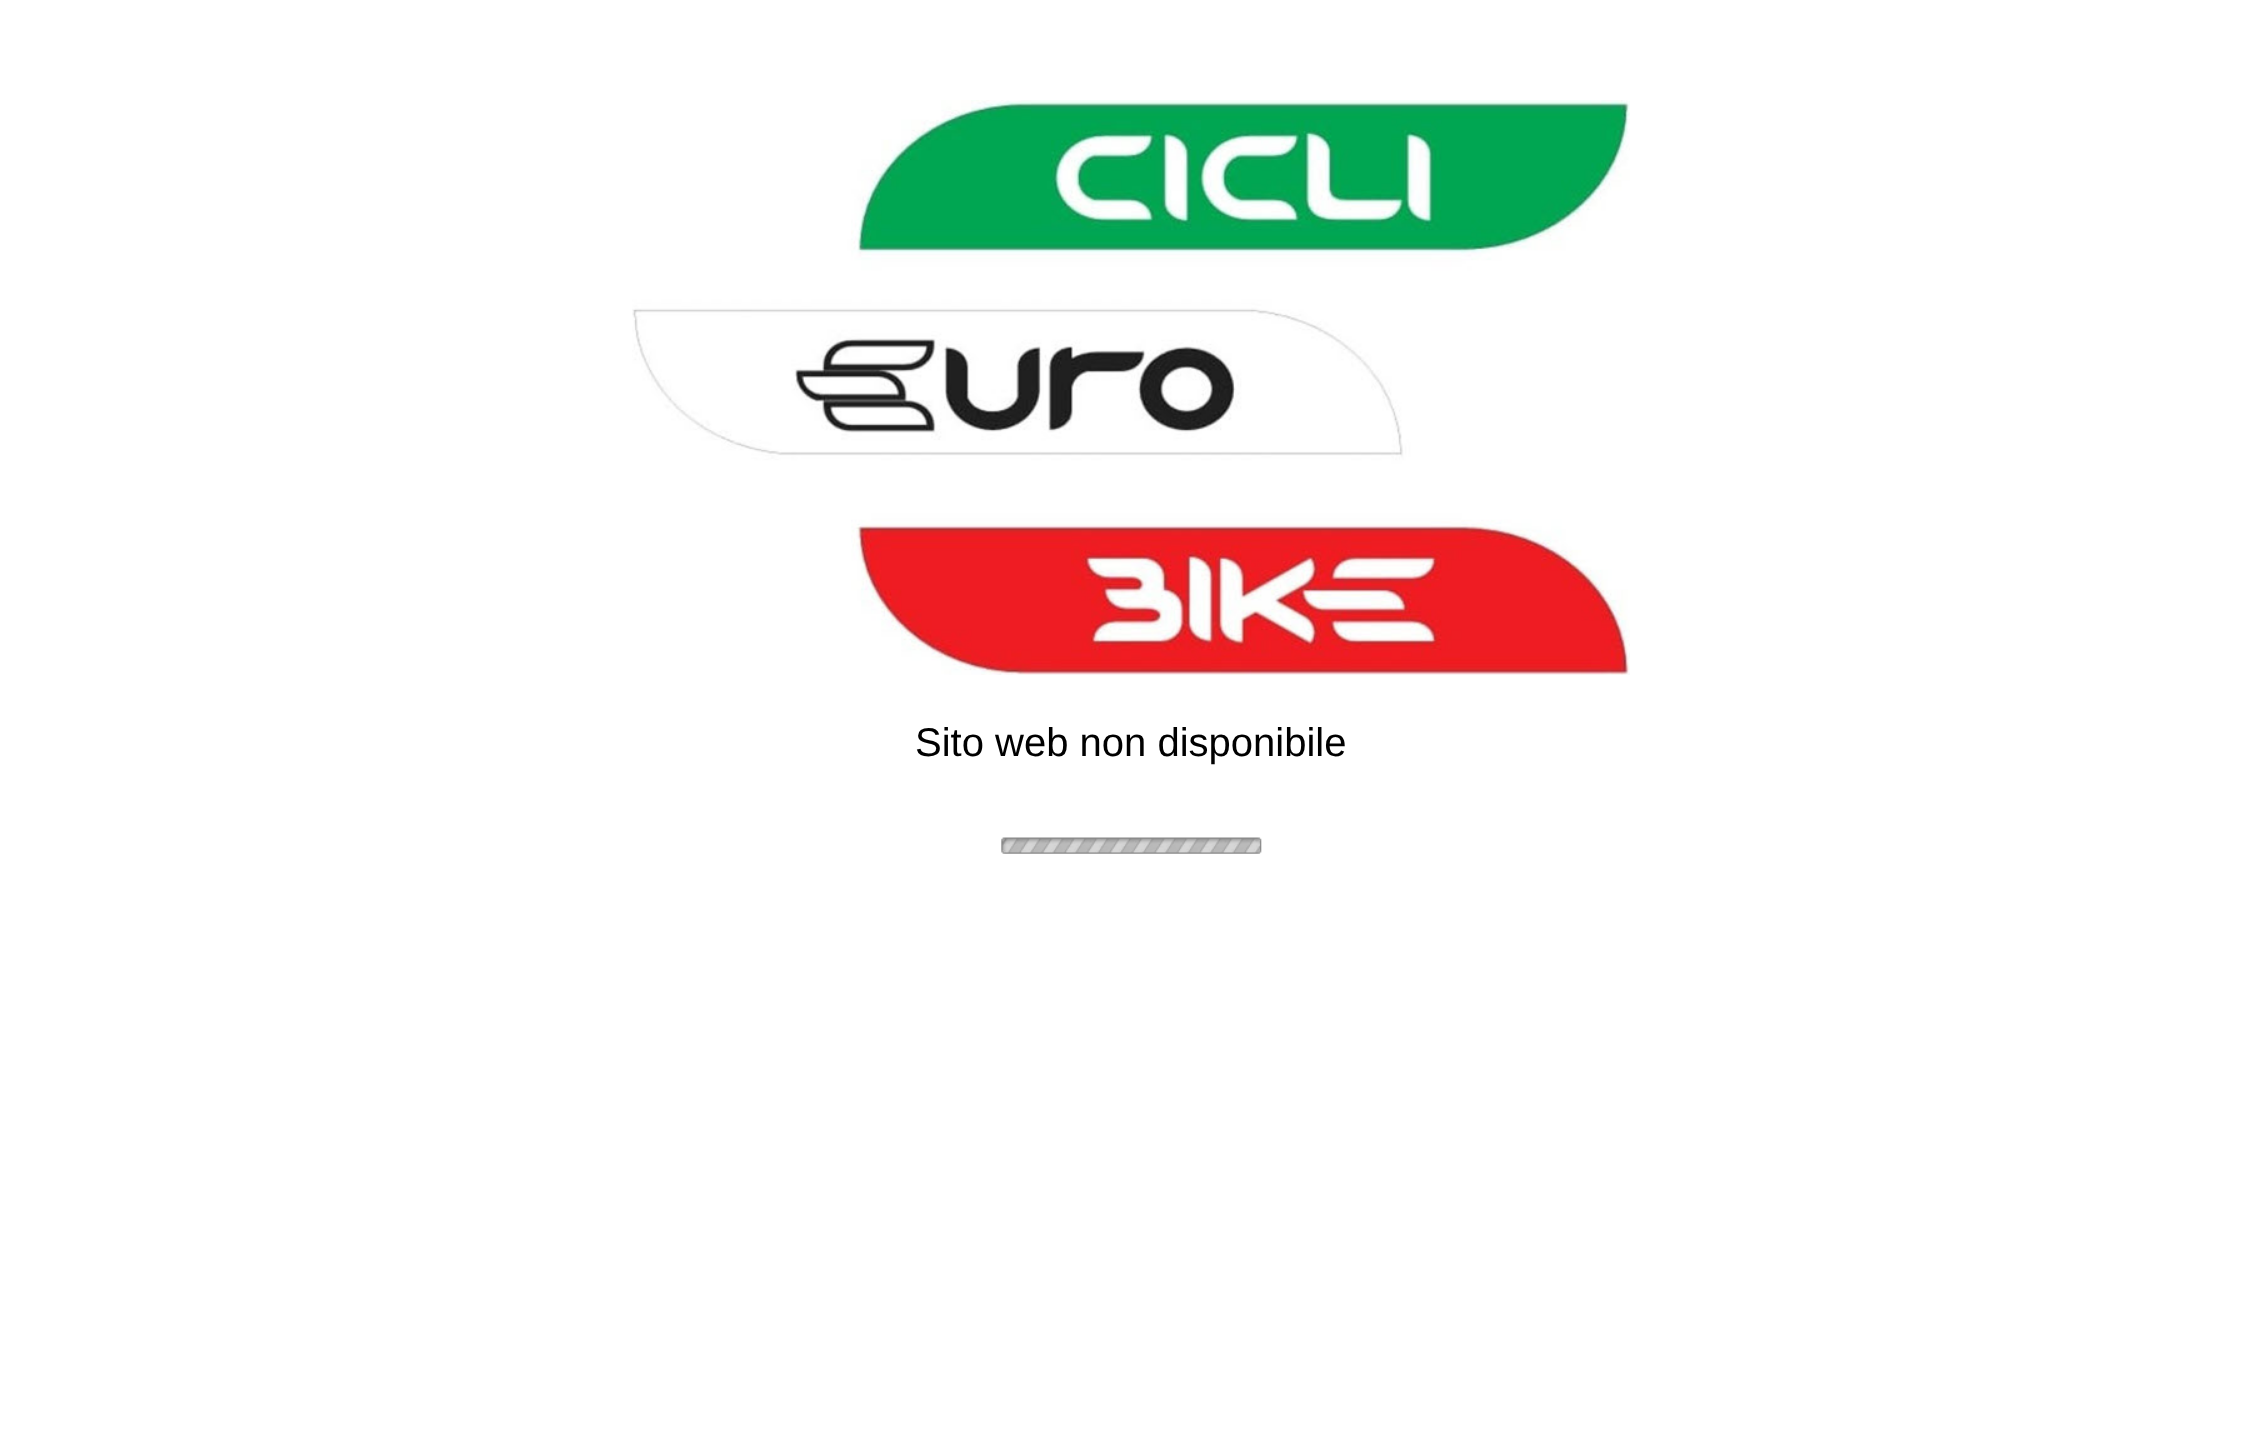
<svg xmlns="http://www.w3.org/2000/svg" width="2261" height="1431">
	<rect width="100%" height="100%" fill="#FFFFFF" />
	<image x="632" y="100" width="998" height="575" href="assets/img1.png" />
	<text x="915" y="756" font-family="Liberation Sans" font-size="40" fill="#000000">Sito web non disponibile</text>
	<image x="1001" y="837" width="261" height="17" href="assets/img2.png" />
</svg>
